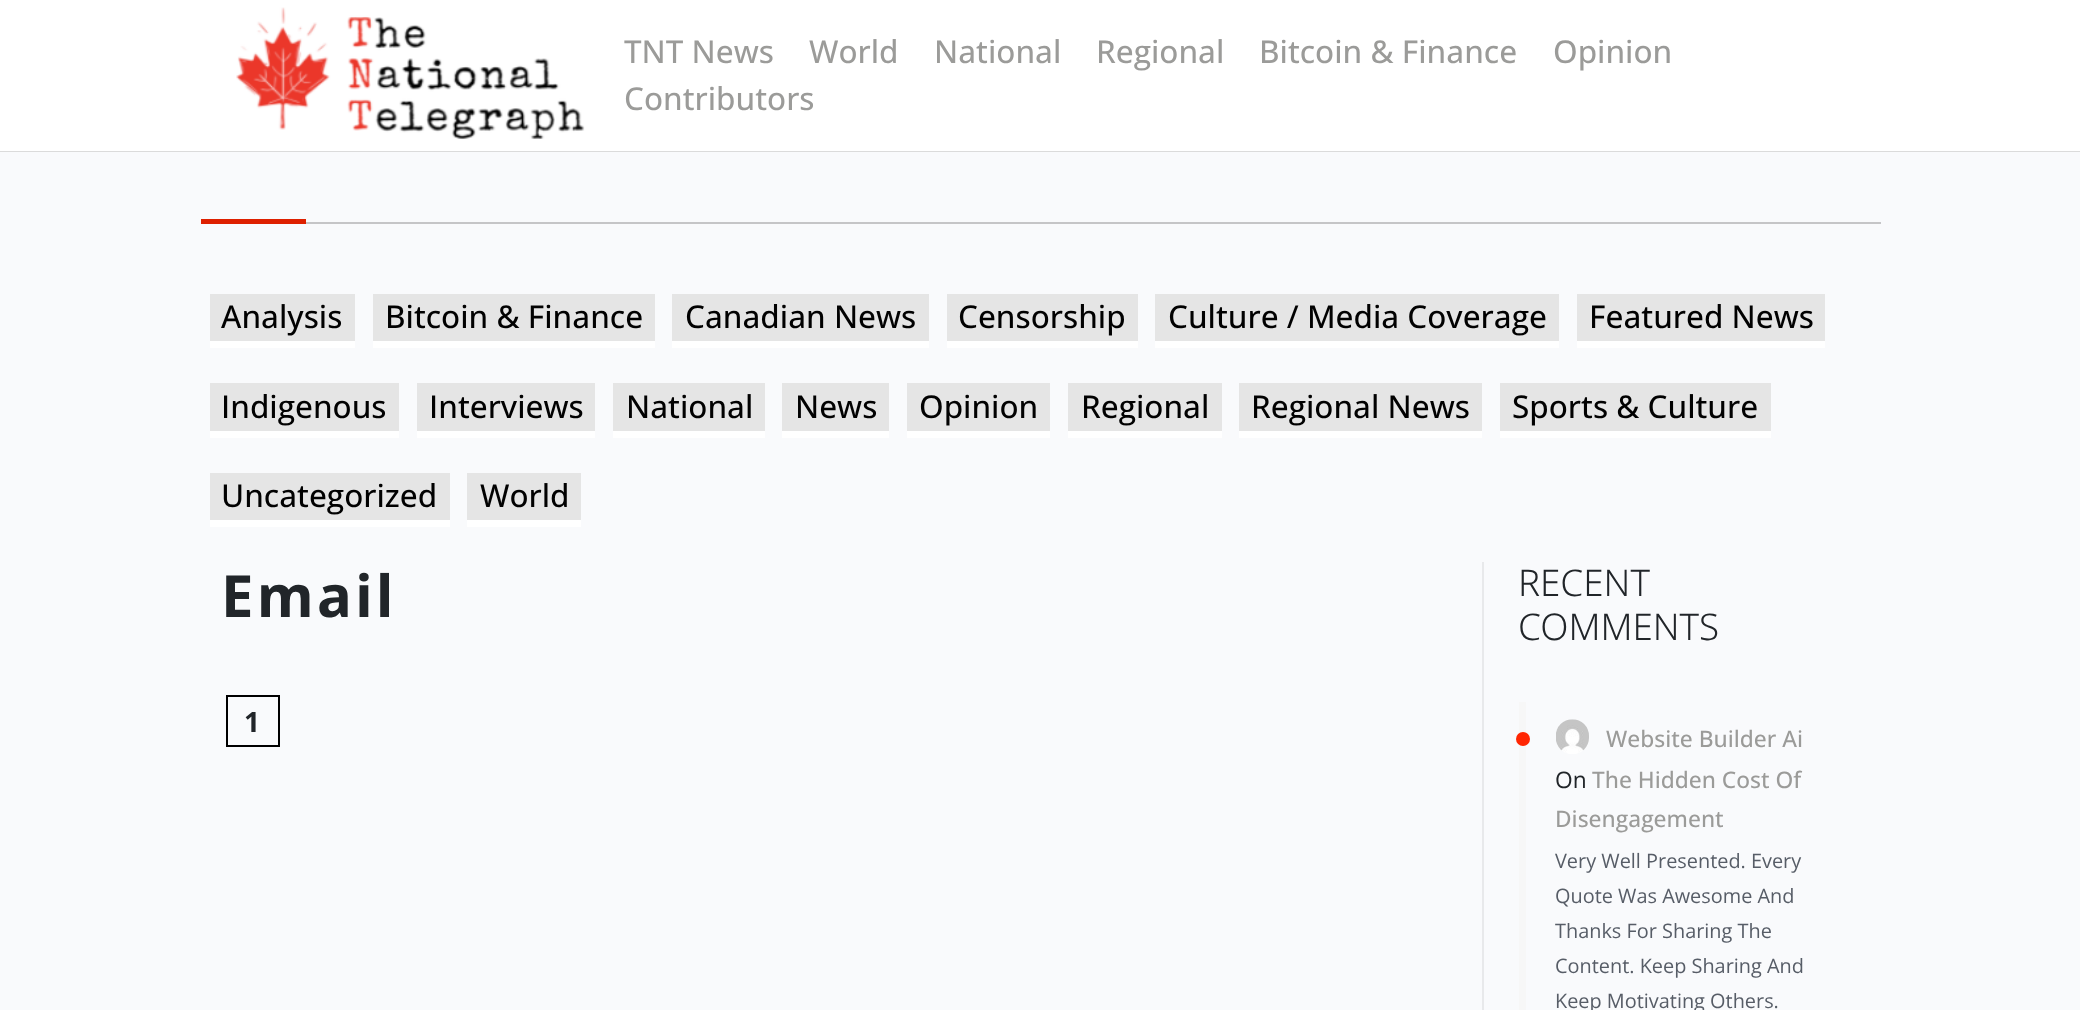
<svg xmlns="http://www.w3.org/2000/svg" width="2080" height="1010">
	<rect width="100%" height="100%" fill="#FFFFFF" />
	<rect x="0" y="151" width="2080" height="1" fill="#DBDBDB" />
	<image x="236" y="7" width="349" height="133" href="assets/img1.png" />
	<g font-family="Open Sans" font-size="31.5" font-weight="500" fill="#9B9B99">
		<text x="624" y="63">TNT News</text>
		<text x="809" y="63">World</text>
		<text x="934" y="63">National</text>
		<text x="1096" y="63">Regional</text>
		<text x="1259" y="63">Bitcoin &amp; Finance</text>
		<text x="1553" y="63">Opinion</text>
		<text x="624" y="110">Contributors</text>
	</g>
	<rect x="0" y="152" width="2080" height="858" fill="#F9FAFC" />
	<rect x="306" y="222" width="1575" height="2" fill="#C5C5C7" />
	<rect x="201" y="219" width="105" height="5" fill="#DE2000" />
	<rect x="210" y="294" width="145" height="47" fill="#E5E5E5" />
	<rect x="210" y="341" width="145" height="7" fill="#FFFFFF" />
	<text x="221" y="328" font-family="Open Sans" font-size="31.5" font-weight="500" fill="#010101">Analysis</text>
	<rect x="373" y="294" width="282" height="47" fill="#E5E5E5" />
	<rect x="373" y="341" width="282" height="7" fill="#FFFFFF" />
	<text x="385" y="328" font-family="Open Sans" font-size="31.5" font-weight="500" fill="#010101">Bitcoin &amp; Finance</text>
	<rect x="672" y="294" width="257" height="47" fill="#E5E5E5" />
	<rect x="672" y="341" width="257" height="7" fill="#FFFFFF" />
	<text x="685" y="328" font-family="Open Sans" font-size="31.5" font-weight="500" fill="#010101">Canadian News</text>
	<rect x="947" y="294" width="191" height="47" fill="#E5E5E5" />
	<rect x="947" y="341" width="191" height="7" fill="#FFFFFF" />
	<text x="958" y="328" font-family="Open Sans" font-size="31.5" font-weight="500" fill="#010101">Censorship</text>
	<rect x="1155" y="294" width="404" height="47" fill="#E5E5E5" />
	<rect x="1155" y="341" width="404" height="7" fill="#FFFFFF" />
	<text x="1168" y="328" font-family="Open Sans" font-size="31.5" font-weight="500" fill="#010101">Culture / Media Coverage</text>
	<rect x="1577" y="294" width="248" height="47" fill="#E5E5E5" />
	<rect x="1577" y="341" width="248" height="7" fill="#FFFFFF" />
	<text x="1589" y="328" font-family="Open Sans" font-size="31.5" font-weight="500" fill="#010101">Featured News</text>
	<rect x="210" y="383" width="189" height="48" fill="#E5E5E5" />
	<rect x="210" y="431" width="189" height="7" fill="#FFFFFF" />
	<text x="221" y="418" font-family="Open Sans" font-size="31.5" font-weight="500" fill="#010101">Indigenous</text>
	<rect x="417" y="383" width="178" height="48" fill="#E5E5E5" />
	<rect x="417" y="431" width="178" height="7" fill="#FFFFFF" />
	<text x="429" y="418" font-family="Open Sans" font-size="31.5" font-weight="500" fill="#010101">Interviews</text>
	<rect x="613" y="383" width="152" height="48" fill="#E5E5E5" />
	<rect x="613" y="431" width="152" height="7" fill="#FFFFFF" />
	<text x="626" y="418" font-family="Open Sans" font-size="31.5" font-weight="500" fill="#010101">National</text>
	<rect x="782" y="383" width="107" height="48" fill="#E5E5E5" />
	<rect x="782" y="431" width="107" height="7" fill="#FFFFFF" />
	<text x="795" y="418" font-family="Open Sans" font-size="31.5" font-weight="500" fill="#010101">News</text>
	<rect x="907" y="383" width="143" height="48" fill="#E5E5E5" />
	<rect x="907" y="431" width="143" height="7" fill="#FFFFFF" />
	<text x="919" y="418" font-family="Open Sans" font-size="31.5" font-weight="500" fill="#010101">Opinion</text>
	<rect x="1068" y="383" width="154" height="48" fill="#E5E5E5" />
	<rect x="1068" y="431" width="154" height="7" fill="#FFFFFF" />
	<text x="1081" y="418" font-family="Open Sans" font-size="31.5" font-weight="500" fill="#010101">Regional</text>
	<rect x="1239" y="383" width="243" height="48" fill="#E5E5E5" />
	<rect x="1239" y="431" width="243" height="7" fill="#FFFFFF" />
	<text x="1251" y="418" font-family="Open Sans" font-size="31.5" font-weight="500" fill="#010101">Regional News</text>
	<rect x="1500" y="383" width="271" height="48" fill="#E5E5E5" />
	<rect x="1500" y="431" width="271" height="7" fill="#FFFFFF" />
	<text x="1512" y="418" font-family="Open Sans" font-size="31.5" font-weight="500" fill="#010101">Sports &amp; Culture</text>
	<rect x="210" y="473" width="240" height="47" fill="#E5E5E5" />
	<rect x="210" y="520" width="240" height="7" fill="#FFFFFF" />
	<text x="221" y="507" font-family="Open Sans" font-size="31.5" font-weight="500" fill="#010101">Uncategorized</text>
	<rect x="467" y="473" width="114" height="47" fill="#E5E5E5" />
	<rect x="467" y="520" width="114" height="7" fill="#FFFFFF" />
	<text x="480" y="507" font-family="Open Sans" font-size="31.5" font-weight="500" fill="#010101">World</text>
	<text x="221" y="617" font-family="Noto Sans" font-size="58" font-weight="700" letter-spacing="3.5" fill="#212529">Email</text>
	<rect x="227" y="696" width="52" height="50" fill="none" stroke="#000000" stroke-width="2" />
	<text x="244" y="732" font-family="Noto Sans" font-size="28" font-weight="700" fill="#212529">1</text>
	<rect x="1482" y="562" width="2" height="448" fill="#E8E9EB" />
	<g font-family="Noto Sans" font-size="36.75" font-weight="300" fill="#212529">
		<text x="1518" y="596">RECENT</text>
		<text x="1518" y="640">COMMENTS</text>
	</g>
	<rect x="1519" y="702" width="7" height="308" fill="#F7F7F7" />
	<image x="1556" y="719" width="33" height="35" href="assets/img2.png" />
	<circle cx="1523" cy="739" r="7" fill="#FF2602" />
	<text x="1606" y="747" font-family="Open Sans" font-size="22.75" font-weight="500" fill="#9B9B99">Website Builder Ai</text>
	<text x="1555" y="788" font-family="Open Sans" font-size="22.75" fill="#212529">On</text>
	<g font-family="Open Sans" font-size="22.75" font-weight="500" fill="#9B9B99">
		<text x="1592" y="788">The Hidden Cost Of</text>
		<text x="1555" y="827">Disengagement</text>
	</g>
	<g font-family="Open Sans" font-size="19.9" fill="#575D67">
		<text x="1555" y="868">Very Well Presented. Every</text>
		<text x="1555" y="903">Quote Was Awesome And</text>
		<text x="1555" y="938">Thanks For Sharing The</text>
		<text x="1555" y="973">Content. Keep Sharing And</text>
		<text x="1555" y="1008">Keep Motivating Others.</text>
	</g>
</svg>
